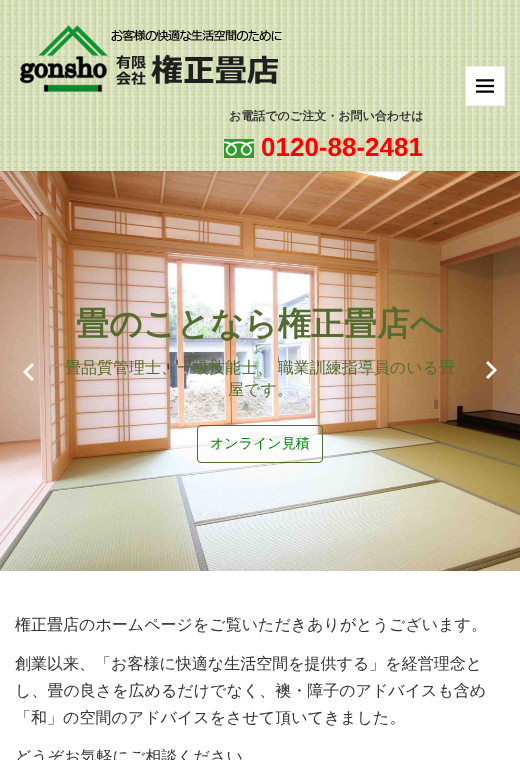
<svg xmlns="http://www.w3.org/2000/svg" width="520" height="760">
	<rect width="100%" height="100%" fill="#FFFFFF" />
	<image x="0" y="171" width="520" height="400" href="assets/img5.png" />
	<rect x="0" y="0" width="520" height="171" fill="#000000" fill-opacity="0.2" filter="blur(1.5px)" />
	<image x="0" y="0" width="520" height="171" href="assets/img1.png" />
	<rect x="465.5" y="66.5" width="39" height="39" fill="#FFFFFF" stroke="#EEEEEE" />
	<image x="476" y="79" width="18" height="14" href="assets/img2.png" />
	<image x="20" y="25" width="262" height="67" href="assets/img3.png" />
	<text x="229" y="120" font-family="WenQuanYi Zen Hei" font-size="12" font-weight="700" fill="#333333">お電話でのご注文・お問い合わせは</text>
	<image x="224" y="139" width="30" height="19" href="assets/img4.png" />
	<text x="261" y="156" font-family="Liberation Sans" font-size="26" font-weight="700" fill="#FF0000">0120-88-2481</text>
	<path d="M34 365L27 372L34 379L32 381L23 372L32 363Z" fill="#FFFFFF" />
	<text x="76" y="335" font-family="WenQuanYi Zen Hei" font-size="33" font-weight="700" fill="#556B2F">畳のことなら権正畳店へ</text>
	<g font-family="WenQuanYi Zen Hei" font-size="16" font-weight="500" fill="#556B2F">
		<text x="65" y="373">畳品質管理士、一級技能士、 職業訓練指導員のいる畳</text>
		<text x="228" y="395">屋です。</text>
	</g>
	<rect x="197.5" y="425.5" width="125" height="37" rx="3.5" fill="none" stroke="#556B2F" />
	<text x="210" y="448" font-family="WenQuanYi Zen Hei" font-size="14" font-weight="500" fill="#008000">オンライン見積</text>
	<path d="M486 377L493 370L486 363L488 361L497 370L488 379Z" fill="#FFFFFF" />
	<g font-family="WenQuanYi Zen Hei" font-size="16" font-weight="500" fill="#333333">
		<text x="15" y="630">権正畳店のホームページをご覧いただきありがとうございます。</text>
		<text x="15" y="669">創業以来、「お客様に快適な生活空間を提供する」を経営理念と</text>
		<text x="15" y="696">し、畳の良さを広めるだけでなく、襖・障子のアドバイスも含め</text>
		<text x="15" y="723">「和」の空間のアドバイスをさせて頂いてきました。</text>
		<text x="15" y="762">どうぞお気軽にご相談ください</text>
	</g>
</svg>
